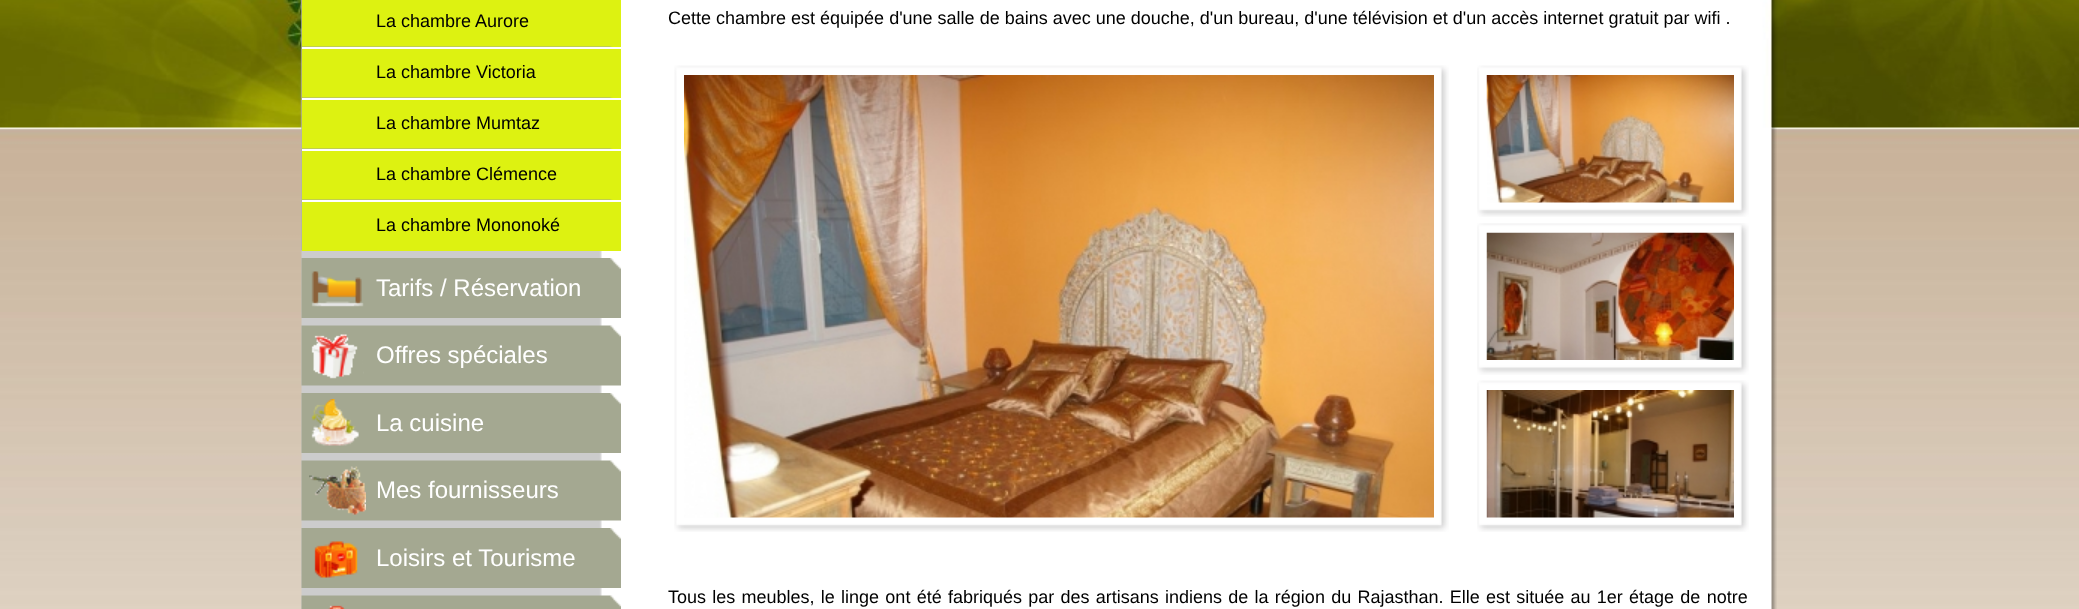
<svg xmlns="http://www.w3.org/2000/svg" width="2079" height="609">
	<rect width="100%" height="100%" fill="#FFFFFF" />
	<image x="0" y="127" width="2079" height="482" href="assets/img1.png" />
	<image x="301" y="127" width="1476" height="482" href="assets/img27.png" />
	<image x="0" y="0" width="2079" height="128" href="assets/img2.png" />
	<rect x="301" y="0" width="1" height="5" fill="#A4A891" />
	<image x="301" y="5" width="1" height="42" href="assets/img3.png" />
	<rect x="302" y="0" width="319" height="47" fill="#DDF211" />
	<text x="376" y="27" font-family="Liberation Sans" font-size="18" fill="#000000">La chambre Aurore</text>
	<image x="301" y="46" width="312" height="52" href="assets/img4.png" />
	<rect x="302" y="49" width="319" height="49" fill="#DDF211" />
	<rect x="302" y="47" width="319" height="2" fill="#FFFFFF" />
	<text x="376" y="78" font-family="Liberation Sans" font-size="18" fill="#000000">La chambre Victoria</text>
	<image x="301" y="97" width="312" height="52" href="assets/img5.png" />
	<rect x="302" y="100" width="319" height="49" fill="#DDF211" />
	<rect x="302" y="98" width="319" height="2" fill="#FFFFFF" />
	<text x="376" y="129" font-family="Liberation Sans" font-size="18" fill="#000000">La chambre Mumtaz</text>
	<image x="301" y="148" width="312" height="52" href="assets/img6.png" />
	<rect x="302" y="151" width="319" height="49" fill="#DDF211" />
	<rect x="302" y="149" width="319" height="2" fill="#FFFFFF" />
	<text x="376" y="180" font-family="Liberation Sans" font-size="18" fill="#000000">La chambre Clémence</text>
	<image x="301" y="199" width="312" height="52" href="assets/img7.png" />
	<rect x="302" y="202" width="319" height="49" fill="#DDF211" />
	<rect x="302" y="200" width="319" height="2" fill="#FFFFFF" />
	<text x="376" y="231" font-family="Liberation Sans" font-size="18" fill="#000000">La chambre Mononoké</text>
	<image x="301" y="258" width="320" height="60" href="assets/img8.png" />
	<image x="311" y="271" width="53" height="36" href="assets/img9.png" />
	<text x="376" y="296" font-family="Liberation Sans" font-size="24" fill="#FFFFFF">Tarifs / Réservation</text>
	<image x="301" y="325" width="320" height="61" href="assets/img10.png" />
	<image x="311" y="334" width="53" height="45" href="assets/img11.png" />
	<text x="376" y="363" font-family="Liberation Sans" font-size="24" fill="#FFFFFF">Offres spéciales</text>
	<image x="301" y="393" width="320" height="60" href="assets/img12.png" />
	<image x="311" y="399" width="48" height="47" href="assets/img13.png" />
	<text x="376" y="431" font-family="Liberation Sans" font-size="24" fill="#FFFFFF">La cuisine</text>
	<image x="301" y="460" width="320" height="61" href="assets/img14.png" />
	<image x="309" y="466" width="57" height="49" href="assets/img15.png" />
	<text x="376" y="498" font-family="Liberation Sans" font-size="24" fill="#FFFFFF">Mes fournisseurs</text>
	<image x="301" y="528" width="320" height="60" href="assets/img16.png" />
	<image x="314" y="541" width="44" height="37" href="assets/img17.png" />
	<text x="376" y="566" font-family="Liberation Sans" font-size="24" fill="#FFFFFF">Loisirs et Tourisme</text>
	<image x="301" y="595" width="320" height="14" href="assets/img18.png" />
	<image x="328" y="605" width="17" height="4" href="assets/img19.png" />
	<text x="668" y="24" font-family="Liberation Sans" font-size="18" fill="#000000">Cette chambre est équipée d'une salle de bains avec une douche, d'un bureau, d'une télévision et d'un accès internet gratuit par wifi .</text>
	<image x="674" y="65" width="775" height="467" href="assets/img20.png" />
	<image x="684" y="75" width="750" height="443" href="assets/img21.png" />
	<image x="1477" y="65" width="272" height="152" href="assets/img22.png" />
	<image x="1486" y="75" width="248" height="128" href="assets/img23.png" />
	<image x="1477" y="223" width="272" height="152" href="assets/img24.png" />
	<image x="1486" y="232" width="248" height="128" href="assets/img25.png" />
	<image x="1477" y="380" width="272" height="152" href="assets/img22.png" />
	<image x="1486" y="390" width="248" height="128" href="assets/img26.png" />
	<text x="668" y="603" word-spacing="1.25" font-family="Liberation Sans" font-size="18" fill="#000000">Tous les meubles, le linge ont été fabriqués par des artisans indiens de la région du Rajasthan. Elle est située au 1er étage de notre</text>
</svg>
